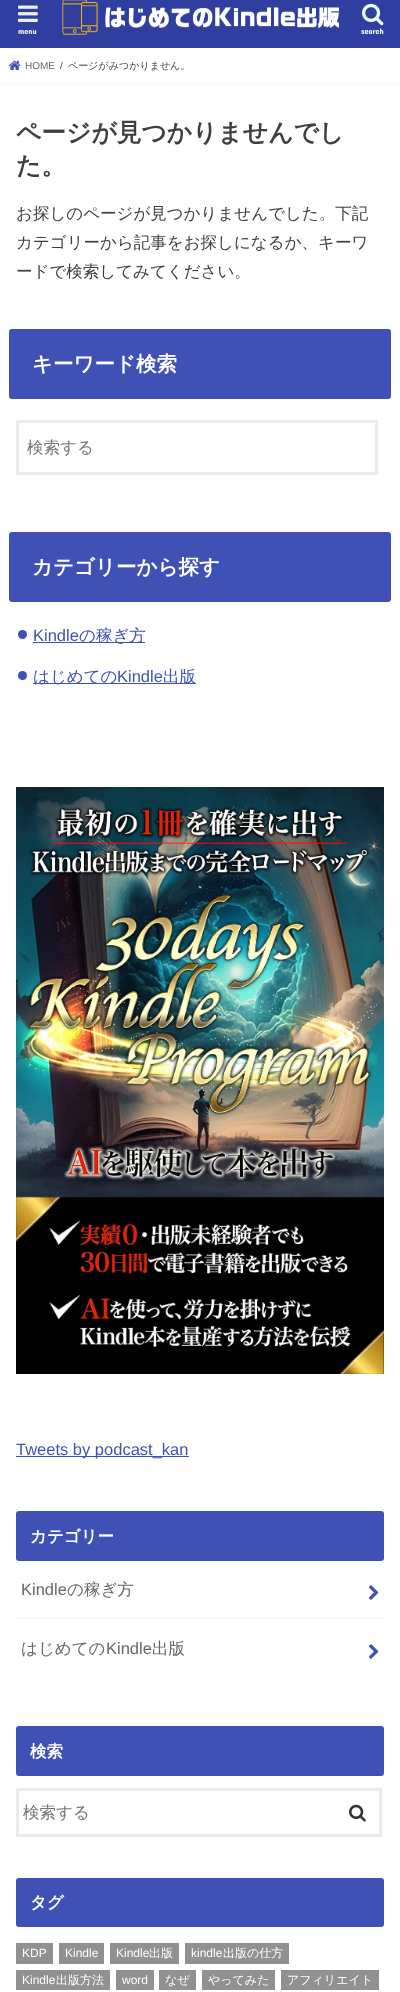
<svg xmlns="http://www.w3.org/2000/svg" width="400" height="1992">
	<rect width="100%" height="100%" fill="#FFFFFF" />
	<rect x="0" y="0" width="400" height="48" fill="#303F9F" />
	<image x="18" y="5" width="20" height="17" href="assets/img1.png" />
	<text x="18" y="34" font-family="Concert One" font-size="8" fill="#EEEEEE">menu</text>
	<image x="62" y="0" width="277" height="35" href="assets/img2.png" />
	<image x="362" y="3" width="22" height="23" href="assets/img3.png" />
	<text x="361" y="34" font-family="Concert One" font-size="8" fill="#EDF9FC">search</text>
	<rect x="0" y="83" width="400" height="1" fill="#F7F7F7" />
	<image x="8" y="60" width="13" height="11" href="assets/img4.png" />
	<text x="25" y="69" font-family="Liberation Sans" font-size="10" fill="#666666">HOME</text>
	<text x="60" y="69" font-family="Liberation Sans" font-size="10" fill="#3E3E3E">/</text>
	<text x="68" y="69" font-family="WenQuanYi Zen Hei" font-size="10" font-weight="500" fill="#3E3E3E">ページがみつかりません。</text>
	<rect x="0" y="84" width="400" height="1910" fill="#DDDDDD" filter="blur(0.5px)" />
	<rect x="0" y="84" width="400" height="1908" fill="#FFFFFF" />
	<g font-family="WenQuanYi Zen Hei" font-size="24.75" font-weight="700" fill="#3E3E3E">
		<text x="16" y="141">ページが見つかりませんでし</text>
		<text x="16" y="174">た。</text>
	</g>
	<g font-family="WenQuanYi Zen Hei" font-size="16.5" font-weight="500" fill="#3E3E3E">
		<text x="16" y="219">お探しのページが見つかりませんでした。下記</text>
		<text x="16" y="248">カテゴリーから記事をお探しになるか、キーワ</text>
		<text x="16" y="277">ードで検索してみてください。</text>
	</g>
	<rect x="9" y="329" width="382" height="70" rx="3" fill="#3F51B5" />
	<text x="32" y="371" font-family="WenQuanYi Zen Hei" font-size="20.5" font-weight="700" fill="#FFFFFF">キーワード検索</text>
	<path d="M17.5 421.5H376.5V473.5H17.5Z" fill="none" stroke="#EBEBEB" stroke-width="3" />
	<text x="27" y="453" font-family="WenQuanYi Zen Hei" font-size="16.5" font-weight="500" fill="#757575">検索する</text>
	<rect x="9" y="532" width="382" height="70" rx="3" fill="#3F51B5" />
	<text x="32" y="574" font-family="WenQuanYi Zen Hei" font-size="20.5" font-weight="700" fill="#FFFFFF">カテゴリーから探す</text>
	<circle cx="22.5" cy="634.5" r="4.5" fill="#3F51B5" />
	<text x="33" y="641" font-family="Liberation Sans" font-size="16.5" fill="#3F51B5">Kindle</text>
	<rect x="33" y="642" width="112" height="1" fill="#3F51B5" />
	<text x="79" y="641" font-family="WenQuanYi Zen Hei" font-size="16.5" font-weight="500" fill="#3F51B5">の稼ぎ方</text>
	<circle cx="22.5" cy="675.5" r="4.5" fill="#3F51B5" />
	<rect x="33" y="683" width="163" height="1" fill="#3F51B5" />
	<text x="33" y="682" font-family="WenQuanYi Zen Hei" font-size="16.5" font-weight="500" fill="#3F51B5">はじめての</text>
	<text x="117" y="682" font-family="Liberation Sans" font-size="16.5" fill="#3F51B5">Kindle</text>
	<text x="163" y="682" font-family="WenQuanYi Zen Hei" font-size="16.5" font-weight="500" fill="#3F51B5">出版</text>
	<image x="16" y="787" width="368" height="587" href="assets/img5.png" />
	<rect x="16" y="1456" width="173" height="1" fill="#3F51B5" />
	<text x="16" y="1455" font-family="Liberation Sans" font-size="16.5" fill="#3F51B5">Tweets by podcast_kan</text>
	<rect x="16" y="1511" width="368" height="50" rx="3" fill="#3F51B5" />
	<text x="30" y="1542" font-family="WenQuanYi Zen Hei" font-size="16.5" font-weight="700" fill="#FFFFFF">カテゴリー</text>
	<path d="M16 1618.5H384" fill="none" stroke="#E5E5E5" stroke-dasharray="1 1" />
	<text x="21" y="1595" font-family="Liberation Sans" font-size="16.5" fill="#666666">Kindle</text>
	<text x="67" y="1595" font-family="WenQuanYi Zen Hei" font-size="16.5" font-weight="500" fill="#666666">の稼ぎ方</text>
	<image x="368" y="1585" width="11" height="15" href="assets/img6.png" />
	<text x="21" y="1654" font-family="WenQuanYi Zen Hei" font-size="16.5" font-weight="500" fill="#666666">はじめての</text>
	<text x="106" y="1654" font-family="Liberation Sans" font-size="16.5" fill="#666666">Kindle</text>
	<text x="152" y="1654" font-family="WenQuanYi Zen Hei" font-size="16.5" font-weight="500" fill="#666666">出版</text>
	<image x="368" y="1644" width="11" height="15" href="assets/img6.png" />
	<rect x="16" y="1726" width="368" height="50" rx="3" fill="#3F51B5" />
	<text x="30" y="1757" font-family="WenQuanYi Zen Hei" font-size="16.5" font-weight="700" fill="#FFFFFF">検索</text>
	<path d="M17.5 1789.5H380.5V1835.5H17.5Z" fill="none" stroke="#EBEBEB" stroke-width="3" />
	<text x="23" y="1818" font-family="WenQuanYi Zen Hei" font-size="16.5" font-weight="500" fill="#757575">検索する</text>
	<image x="349" y="1804" width="17" height="18" href="assets/img7.png" />
	<rect x="16" y="1878" width="368" height="49" rx="3" fill="#3F51B5" />
	<text x="30" y="1908" font-family="WenQuanYi Zen Hei" font-size="16.5" font-weight="700" fill="#FFFFFF">タグ</text>
	<rect x="16" y="1943" width="37" height="21" fill="#919191" />
	<text x="22" y="1957" font-family="Liberation Sans" font-size="12" fill="#FFFFFF">KDP</text>
	<rect x="59" y="1943" width="45" height="21" fill="#919191" />
	<text x="65" y="1957" font-family="Liberation Sans" font-size="12" fill="#FFFFFF">Kindle</text>
	<rect x="110" y="1943" width="69" height="21" fill="#919191" />
	<text x="116" y="1957" font-family="Liberation Sans" font-size="12" fill="#FFFFFF">Kindle</text>
	<text x="149" y="1957" font-family="WenQuanYi Zen Hei" font-size="12" font-weight="500" fill="#FFFFFF">出版</text>
	<rect x="185" y="1943" width="104" height="21" fill="#919191" />
	<text x="191" y="1957" font-family="Liberation Sans" font-size="12" fill="#FFFFFF">kindle</text>
	<text x="223" y="1957" font-family="WenQuanYi Zen Hei" font-size="12" font-weight="500" fill="#FFFFFF">出版の仕方</text>
	<rect x="16" y="1970" width="94" height="20" fill="#919191" />
	<text x="22" y="1984" font-family="Liberation Sans" font-size="12" fill="#FFFFFF">Kindle</text>
	<text x="56" y="1984" font-family="WenQuanYi Zen Hei" font-size="12" font-weight="500" fill="#FFFFFF">出版方法</text>
	<rect x="116" y="1970" width="38" height="20" fill="#919191" />
	<text x="122" y="1984" font-family="Liberation Sans" font-size="12" fill="#FFFFFF">word</text>
	<rect x="159" y="1970" width="37" height="20" fill="#919191" />
	<text x="165" y="1984" font-family="WenQuanYi Zen Hei" font-size="12" font-weight="500" fill="#FFFFFF">なぜ</text>
	<rect x="202" y="1970" width="73" height="20" fill="#919191" />
	<text x="208" y="1984" font-family="WenQuanYi Zen Hei" font-size="12" font-weight="500" fill="#FFFFFF">やってみた</text>
	<rect x="281" y="1970" width="98" height="20" fill="#919191" />
	<text x="287" y="1984" font-family="WenQuanYi Zen Hei" font-size="12" font-weight="500" fill="#FFFFFF">アフィリエイト</text>
</svg>
